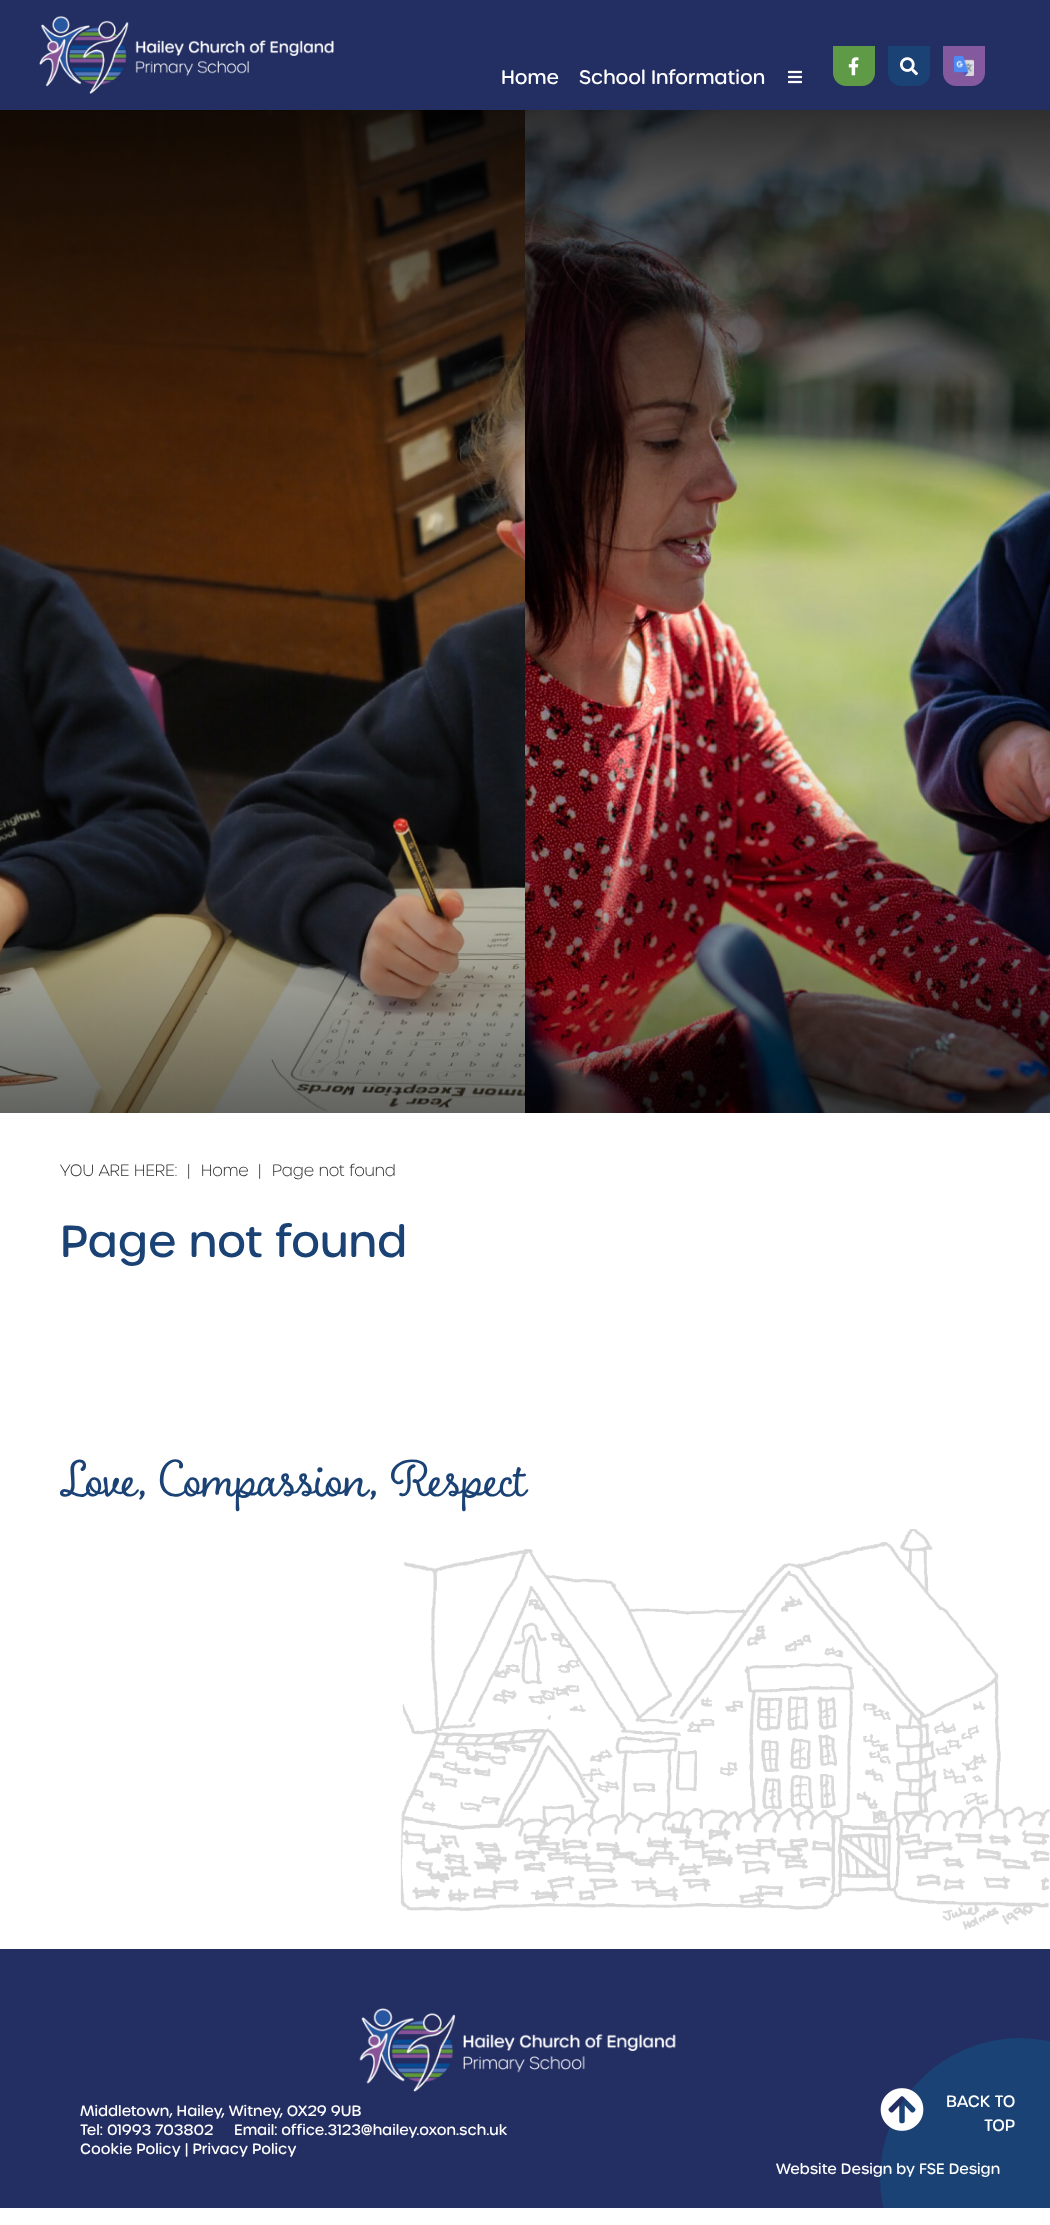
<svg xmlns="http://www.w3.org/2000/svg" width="1050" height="2225">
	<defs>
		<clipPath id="clip1"><rect x="0" y="1949" width="1050" height="259" /></clipPath>
	</defs>
	<rect width="100%" height="100%" fill="#FFFFFF" />
	<rect x="0" y="0" width="1050" height="110" fill="#232E63" />
	<image x="39" y="16" width="295" height="78" href="assets/img1.png" />
	<g font-family="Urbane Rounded" font-size="19" font-weight="500" fill="#FFFFFF">
		<text x="501" y="84">Home</text>
		<text x="579" y="84">School Information</text>
	</g>
	<image x="788" y="70" width="14" height="14" href="assets/img2.png" />
	<path d="M833 46H875V73C875 80 869 86 862 86H846C839 86 833 80 833 73Z" fill="#5F9A47" />
	<image x="848" y="57" width="11" height="19" href="assets/img3.png" />
	<path d="M888 46H930V73C930 80 924 86 917 86H901C894 86 888 80 888 73Z" fill="#1A4275" />
	<image x="900" y="57" width="18" height="19" href="assets/img4.png" />
	<path d="M943 46H985V73C985 80 979 86 972 86H956C949 86 943 80 943 73Z" fill="#84599E" />
	<image x="954" y="56" width="20" height="20" href="assets/img5.png" />
	<image x="0" y="110" width="525" height="1003" href="assets/img6.png" />
	<image x="525" y="110" width="525" height="1003" href="assets/img7.png" />
	<g font-family="Urbane Rounded" font-size="16" font-weight="200" fill="#333333">
		<text x="60" y="1176">YOU ARE HERE:</text>
		<text x="187" y="1176">|</text>
		<text x="201" y="1176">Home</text>
		<text x="258" y="1176">|</text>
		<text x="272" y="1176">Page not found</text>
	</g>
	<text x="60" y="1257" font-family="Urbane Rounded" font-size="43.5" font-weight="500" fill="#1A4275">Page not found</text>
	<text x="60" y="1496" font-family="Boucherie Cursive" font-size="55" fill="#1A4275">Love, Compassion, Respect</text>
	<image x="400" y="1529" width="650" height="401" href="assets/img8.png" />
	<rect x="0" y="1949" width="1050" height="259" fill="#232E63" />
	<image x="359" y="2008" width="317" height="84" href="assets/img9.png" />
	<g font-family="Urbane Rounded" font-size="14.5" font-weight="500" fill="#FFFFFF">
		<text x="80" y="2116">Middletown, Hailey, Witney, OX29 9UB</text>
		<text x="80" y="2135">Tel: 01993 703802</text>
		<text x="234" y="2135">Email: office.3123@hailey.oxon.sch.uk</text>
		<text x="80" y="2154">Cookie Policy | Privacy Policy</text>
	</g>
	<g clip-path="url(#clip1)">
		<circle cx="1020" cy="2178" r="140" fill="#1A4275" />
	</g>
	<image x="880" y="2088" width="44" height="43" href="assets/img10.png" />
	<g font-family="Urbane Rounded" font-size="16" font-weight="500" fill="#FFFFFF">
		<text x="946" y="2107">BACK TO</text>
		<text x="984" y="2131">TOP</text>
	</g>
	<text x="776" y="2174" font-family="Urbane Rounded" font-size="14.5" font-weight="500" fill="#FFFFFF">Website Design by FSE Design</text>
</svg>
